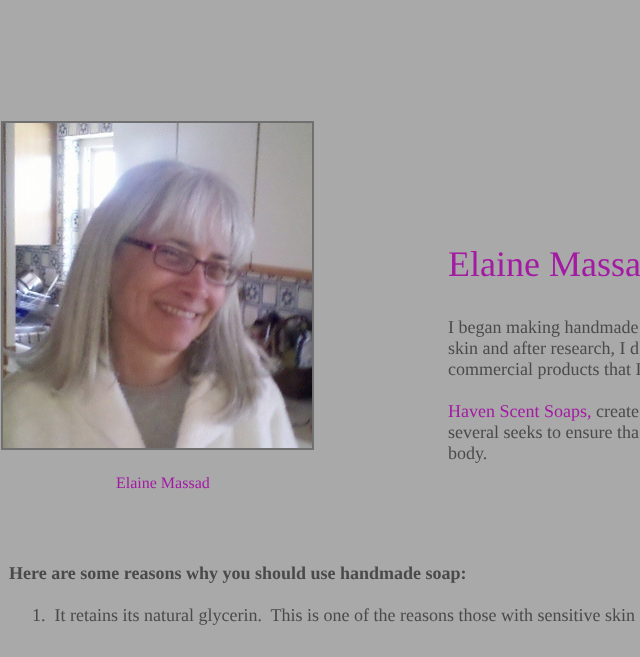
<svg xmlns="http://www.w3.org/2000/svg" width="640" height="657">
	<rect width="100%" height="100%" fill="#A9A9A9" />
	<rect x="1" y="121" width="313" height="329" fill="#717070" />
	<image x="3" y="123" width="309" height="325" href="assets/img1.png" />
	<text x="448" y="276" font-family="Liberation Serif" font-size="36" fill="#A31AA3">Elaine Massa</text>
	<g font-family="Liberation Serif" font-size="18" fill="#4A4A4A">
		<text x="448" y="333">I began making handmade</text>
		<text x="448" y="354">skin and after research, I d</text>
		<text x="448" y="375">commercial products that I</text>
	</g>
	<text x="448" y="417" font-family="Liberation Serif" font-size="18" fill="#A31AA3">Haven Scent Soaps,</text>
	<g font-family="Liberation Serif" font-size="18" fill="#4A4A4A">
		<text x="596" y="417">create</text>
		<text x="448" y="438">several seeks to ensure tha</text>
		<text x="448" y="459">body.</text>
	</g>
	<text x="116" y="488" font-family="Liberation Serif" font-size="16" fill="#A31AA3">Elaine Massad</text>
	<text x="9" y="579" font-family="Liberation Serif" font-size="18" font-weight="700" fill="#4A4A4A">Here are some reasons why you should use handmade soap:</text>
	<text x="32" y="621" font-family="Liberation Serif" font-size="18" fill="#4A4A4A" xml:space="preserve">1.  It retains its natural glycerin.  This is one of the reasons those with sensitive skin</text>
</svg>
